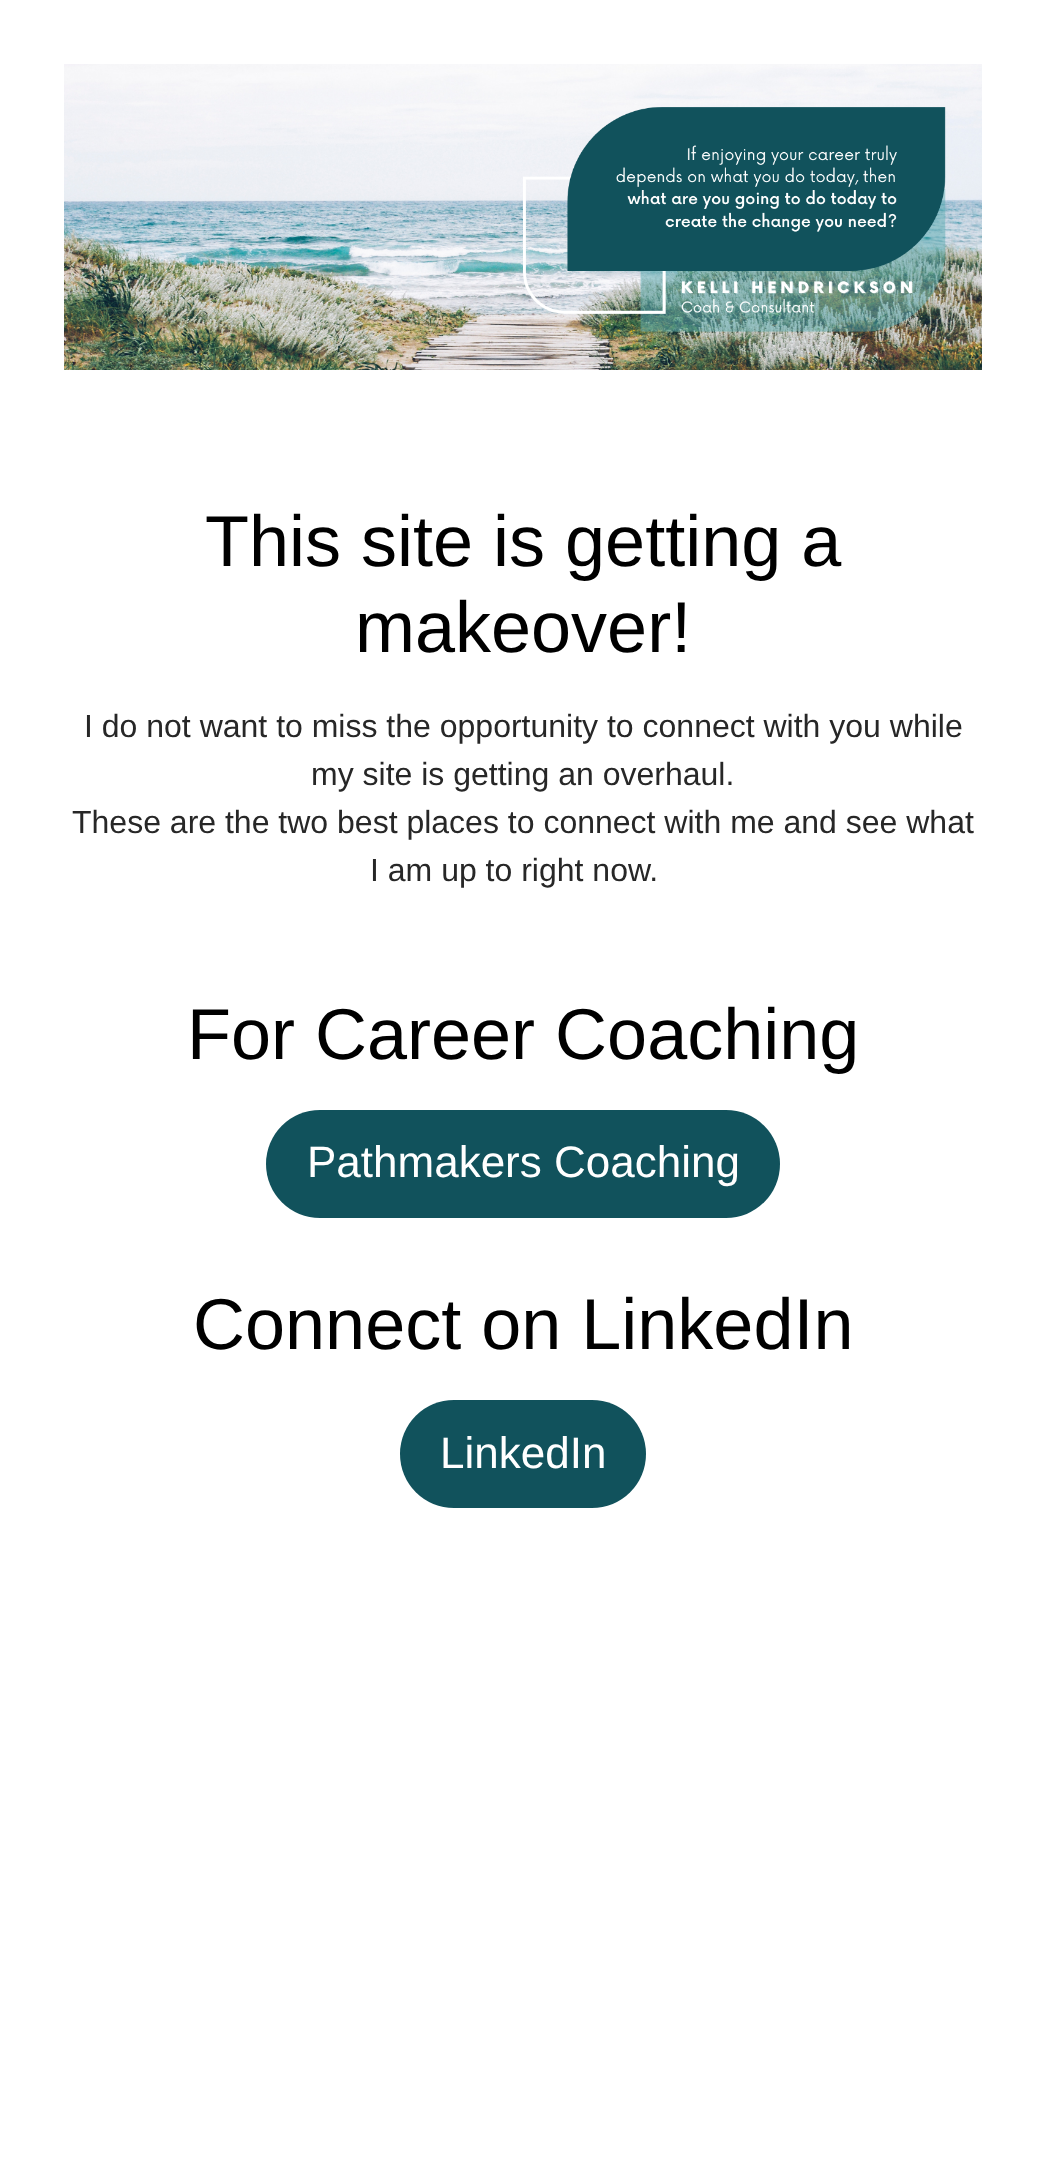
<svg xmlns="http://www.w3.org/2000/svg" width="1045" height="2161">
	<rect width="100%" height="100%" fill="#FFFFFF" />
	<image x="64" y="64" width="918" height="306" href="assets/img1.png" />
	<g font-family="Liberation Sans" font-size="72" fill="#000000">
		<text x="205" y="566">This site is getting a</text>
		<text x="355" y="652">makeover!</text>
	</g>
	<g font-family="Liberation Sans" font-size="32" fill="#272727">
		<text x="84" y="737">I do not want to miss the opportunity to connect with you while</text>
		<text x="311" y="785">my site is getting an overhaul.</text>
		<text x="72" y="833">These are the two best places to connect with me and see what</text>
		<text x="370" y="881">I am up to right now.</text>
	</g>
	<text x="187" y="1059" font-family="Liberation Sans" font-size="72" fill="#000000">For Career Coaching</text>
	<rect x="266" y="1110" width="514" height="108" rx="54" fill="#11525C" />
	<text x="307" y="1177" font-family="Liberation Sans" font-size="44" fill="#FFFFFF">Pathmakers Coaching</text>
	<text x="193" y="1349" font-family="Liberation Sans" font-size="72" fill="#000000">Connect on LinkedIn</text>
	<rect x="400" y="1400" width="246" height="108" rx="54" fill="#11525C" />
	<text x="440" y="1468" font-family="Liberation Sans" font-size="44" fill="#FFFFFF">LinkedIn</text>
</svg>
